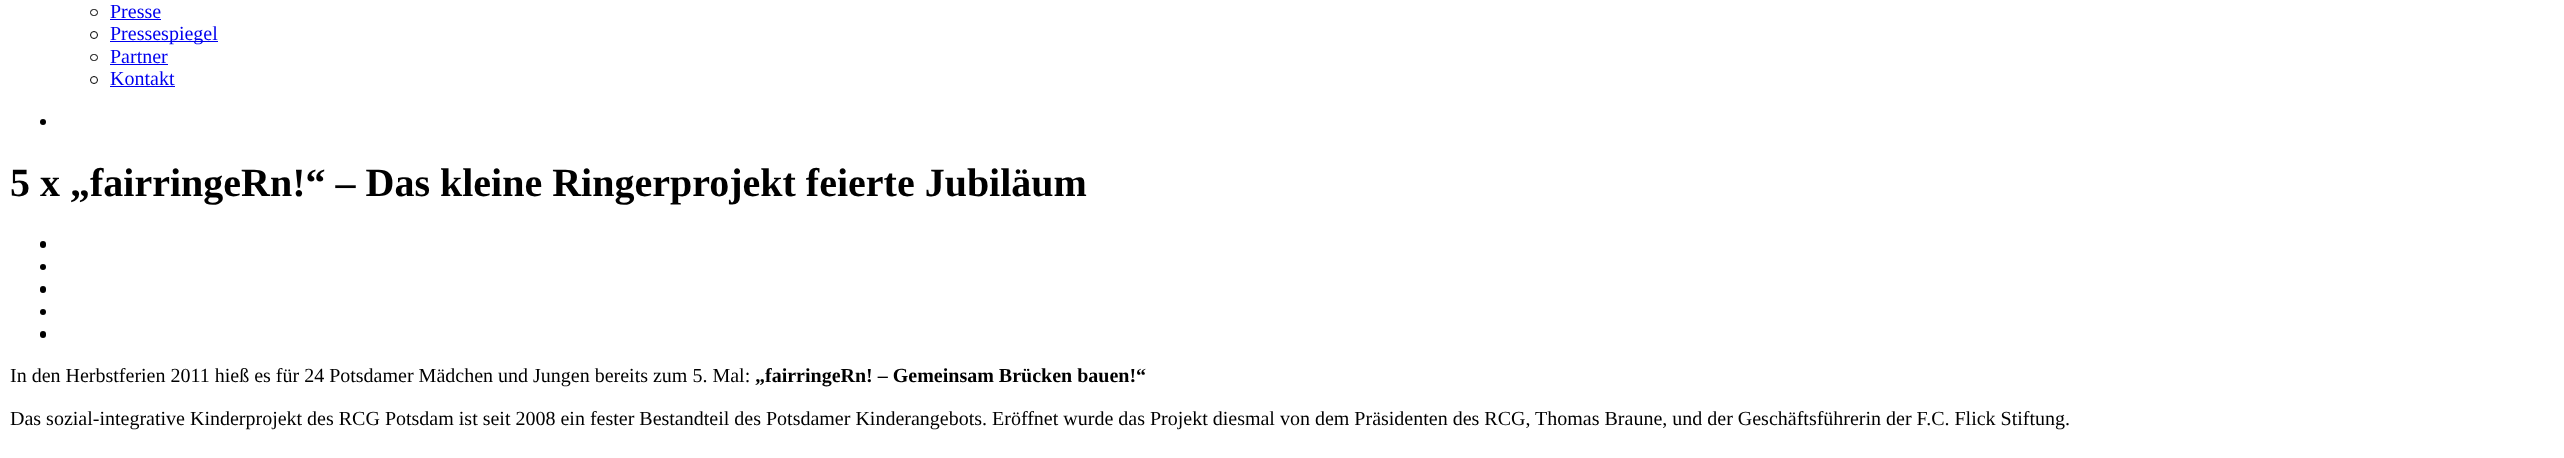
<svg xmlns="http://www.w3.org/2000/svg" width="2564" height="458">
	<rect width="100%" height="100%" fill="#FFFFFF" />
	<rect x="90.5" y="9.5" width="7" height="6" rx="3" fill="none" stroke="#000000" />
	<text x="110" y="18" font-family="Liberation Serif" font-size="20" fill="#0000EE">Presse</text>
	<rect x="110" y="19" width="51" height="1" fill="#0000EE" />
	<circle cx="94" cy="35" r="3.5" fill="none" stroke="#000000" />
	<rect x="110" y="41" width="108" height="1" fill="#0000EE" />
	<text x="110" y="40" font-family="Liberation Serif" font-size="20" fill="#0000EE">Pressespiegel</text>
	<rect x="90.5" y="54.5" width="7" height="6" rx="3" fill="none" stroke="#000000" />
	<text x="110" y="63" font-family="Liberation Serif" font-size="20" fill="#0000EE">Partner</text>
	<rect x="110" y="64" width="58" height="1" fill="#0000EE" />
	<circle cx="94" cy="80" r="3.5" fill="none" stroke="#000000" />
	<text x="110" y="85" font-family="Liberation Serif" font-size="20" fill="#0000EE">Kontakt</text>
	<rect x="110" y="86" width="65" height="1" fill="#0000EE" />
	<circle cx="43" cy="122" r="3" fill="#000000" />
	<text x="10" y="196" font-family="Liberation Serif" font-size="40" font-weight="700" fill="#000000">5 x „fairringeRn!“ – Das kleine Ringerprojekt feierte Jubiläum</text>
	<rect x="40" y="241" width="6" height="7" rx="3" fill="#000000" />
	<circle cx="43" cy="267" r="3" fill="#000000" />
	<rect x="40" y="286" width="6" height="7" rx="3" fill="#000000" />
	<circle cx="43" cy="312" r="3" fill="#000000" />
	<rect x="40" y="331" width="6" height="7" rx="3" fill="#000000" />
	<text x="10" y="382" font-family="Liberation Serif" font-size="20" fill="#000000">In den Herbstferien 2011 hieß es für 24 Potsdamer Mädchen und Jungen bereits zum 5. Mal:</text>
	<text x="755" y="382" font-family="Liberation Serif" font-size="20" font-weight="700" fill="#000000">„fairringeRn! – Gemeinsam Brücken bauen!“</text>
	<text x="10" y="425" font-family="Liberation Serif" font-size="20" fill="#000000">Das sozial-integrative Kinderprojekt des RCG Potsdam ist seit 2008 ein fester Bestandteil des Potsdamer Kinderangebots. Eröffnet wurde das Projekt diesmal von dem Präsidenten des RCG, Thomas Braune, und der Geschäftsführerin der F.C. Flick Stiftung.</text>
</svg>
